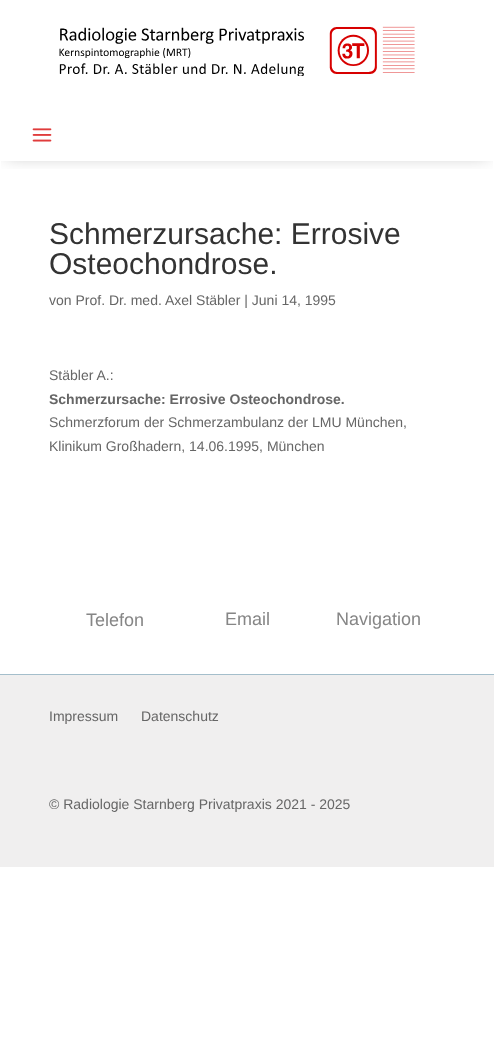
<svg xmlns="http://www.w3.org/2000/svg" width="494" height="1056">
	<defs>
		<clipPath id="clip1"><rect x="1" y="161" width="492" height="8" /></clipPath>
	</defs>
	<rect width="100%" height="100%" fill="#FFFFFF" />
	<g clip-path="url(#clip1)">
		<rect x="6" y="6" width="482" height="149" fill="#000000" fill-opacity="0.3" filter="blur(9px)" />
	</g>
	<image x="59" y="26" width="356" height="50" href="assets/img1.png" />
	<image x="32" y="128" width="20" height="14" href="assets/img2.png" />
	<g font-family="Liberation Sans" font-size="30" fill="#333333">
		<text x="49" y="244">Schmerzursache: Errosive</text>
		<text x="49" y="274">Osteochondrose.</text>
	</g>
	<g font-family="Liberation Sans" font-size="14" fill="#666666">
		<text x="49" y="305">von Prof. Dr. med. Axel Stäbler | Juni 14, 1995</text>
		<text x="49" y="380">Stäbler A.:</text>
	</g>
	<text x="49" y="404" font-family="Liberation Sans" font-size="14" font-weight="700" fill="#666666">Schmerzursache: Errosive Osteochondrose.</text>
	<g font-family="Liberation Sans" font-size="14" fill="#666666">
		<text x="49" y="427">Schmerzforum der Schmerzambulanz der LMU München,</text>
		<text x="49" y="451">Klinikum Großhadern, 14.06.1995, München</text>
	</g>
	<g font-family="Liberation Sans" font-size="18" fill="#868686">
		<text x="86" y="626">Telefon</text>
		<text x="225" y="625">Email</text>
		<text x="336" y="625">Navigation</text>
	</g>
	<rect x="0" y="675" width="494" height="192" fill="#F0EFEF" />
	<rect x="0" y="674" width="494" height="1" fill="#A4BECB" />
	<g font-family="Liberation Sans" font-size="14" fill="#666666">
		<text x="49" y="721">Impressum</text>
		<text x="141" y="721">Datenschutz</text>
		<text x="49" y="809">© Radiologie Starnberg Privatpraxis 2021 - 2025</text>
	</g>
</svg>
